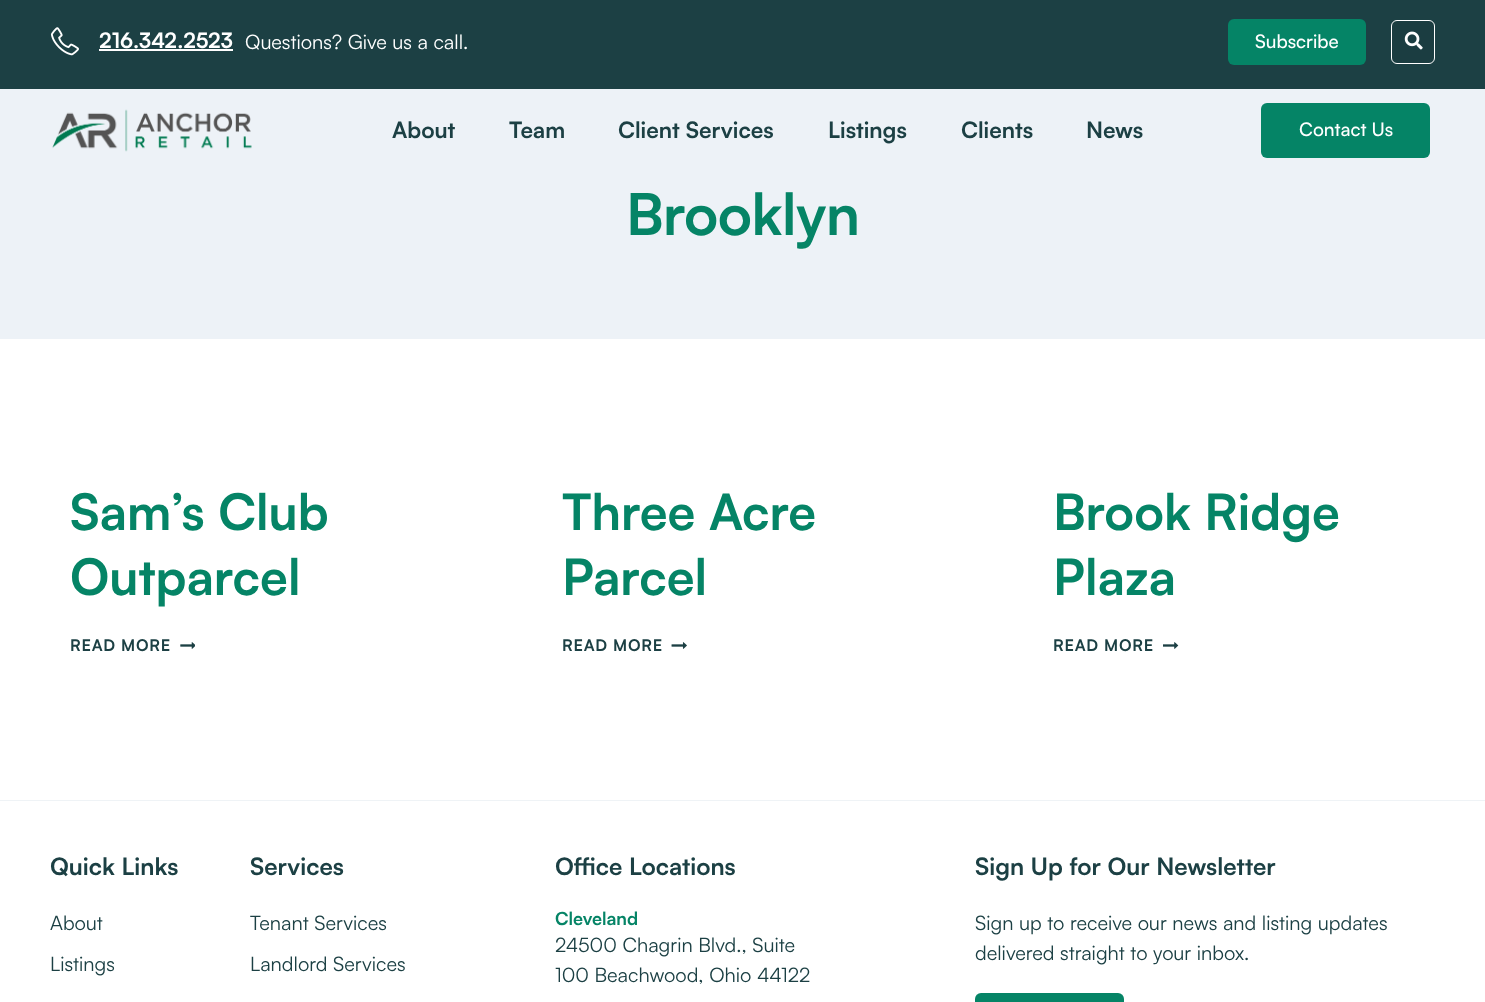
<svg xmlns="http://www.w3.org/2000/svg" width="1485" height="1002">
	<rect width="100%" height="100%" fill="#FFFFFF" />
	<rect x="0" y="0" width="1485" height="89" fill="#1C4044" />
	<image x="50" y="27" width="29" height="29" href="assets/img1.png" />
	<text x="99" y="48" font-family="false" font-size="21.25" font-weight="700" fill="#FFFFFF">216.342.2523</text>
	<rect x="99" y="49" width="134" height="2" fill="#FFFFFF" />
	<text x="245" y="49" font-family="false" font-size="20" fill="#FFFFFF">Questions? Give us a call.</text>
	<rect x="1228" y="19" width="138" height="46" rx="6" fill="#058466" />
	<text x="1255" y="48" font-family="Satoshi" font-size="18.75" font-weight="500" fill="#FFFFFF">Subscribe</text>
	<rect x="1391.5" y="20.5" width="43" height="43" rx="5.5" fill="#1B3D41" stroke="#FFFFFF" />
	<image x="1404" y="31" width="19" height="19" href="assets/img2.png" />
	<rect x="0" y="89" width="1485" height="250" fill="#EDF2F7" />
	<image x="52" y="109" width="200" height="43" href="assets/img3.png" />
	<g font-family="false" font-size="22.5" font-weight="700" fill="#1C4044">
		<text x="392" y="138">About</text>
		<text x="509" y="138">Team</text>
		<text x="618" y="138">Client Services</text>
		<text x="828" y="138">Listings</text>
		<text x="961" y="138">Clients</text>
		<text x="1086" y="138">News</text>
	</g>
	<rect x="1261" y="103" width="169" height="55" rx="6" fill="#058466" />
	<text x="1299" y="136" font-family="Satoshi" font-size="18.75" font-weight="500" fill="#FFFFFF">Contact Us</text>
	<text x="626" y="235" font-family="false" font-size="57.5" font-weight="700" letter-spacing="-0.5" fill="#058466">Brooklyn</text>
	<g font-family="false" font-size="50" font-weight="700" fill="#058466">
		<text x="70" y="530">Sam’s Club</text>
		<text x="70" y="595">Outparcel</text>
	</g>
	<text x="70" y="651" font-family="false" font-size="16" font-weight="700" letter-spacing="0.75" fill="#1C4044">READ MORE</text>
	<image x="180" y="642" width="15" height="7" href="assets/img4.png" />
	<g font-family="false" font-size="50" font-weight="700" fill="#058466">
		<text x="562" y="530">Three Acre</text>
		<text x="562" y="595">Parcel</text>
	</g>
	<text x="562" y="651" font-family="false" font-size="16" font-weight="700" letter-spacing="0.75" fill="#1C4044">READ MORE</text>
	<image x="671" y="642" width="16" height="7" href="assets/img5.png" />
	<g font-family="false" font-size="50" font-weight="700" fill="#058466">
		<text x="1053" y="530">Brook Ridge</text>
		<text x="1053" y="595">Plaza</text>
	</g>
	<text x="1053" y="651" font-family="false" font-size="16" font-weight="700" letter-spacing="0.75" fill="#1C4044">READ MORE</text>
	<image x="1163" y="642" width="16" height="7" href="assets/img6.png" />
	<rect x="0" y="800" width="1485" height="1" fill="#EFF3F6" />
	<text x="50" y="875" font-family="false" font-size="24" font-weight="700" fill="#1C4044">Quick Links</text>
	<g font-family="false" font-size="20" fill="#1C4044">
		<text x="50" y="930">About</text>
		<text x="50" y="971">Listings</text>
	</g>
	<text x="250" y="875" font-family="false" font-size="24" font-weight="700" fill="#1C4044">Services</text>
	<g font-family="false" font-size="20" fill="#1C4044">
		<text x="250" y="930">Tenant Services</text>
		<text x="250" y="971">Landlord Services</text>
	</g>
	<text x="555" y="875" font-family="false" font-size="24" font-weight="700" fill="#1C4044">Office Locations</text>
	<text x="555" y="925" font-family="false" font-size="18" font-weight="700" fill="#058466">Cleveland</text>
	<g font-family="false" font-size="20" fill="#1C4044">
		<text x="555" y="952">24500 Chagrin Blvd., Suite</text>
		<text x="555" y="982">100 Beachwood, Ohio 44122</text>
	</g>
	<text x="975" y="875" font-family="false" font-size="24" font-weight="700" fill="#1C4044">Sign Up for Our Newsletter</text>
	<g font-family="false" font-size="20" fill="#1C4044">
		<text x="975" y="930">Sign up to receive our news and listing updates</text>
		<text x="975" y="960">delivered straight to your inbox.</text>
	</g>
	<rect x="975" y="993" width="149" height="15" rx="6" fill="#058466" />
</svg>
